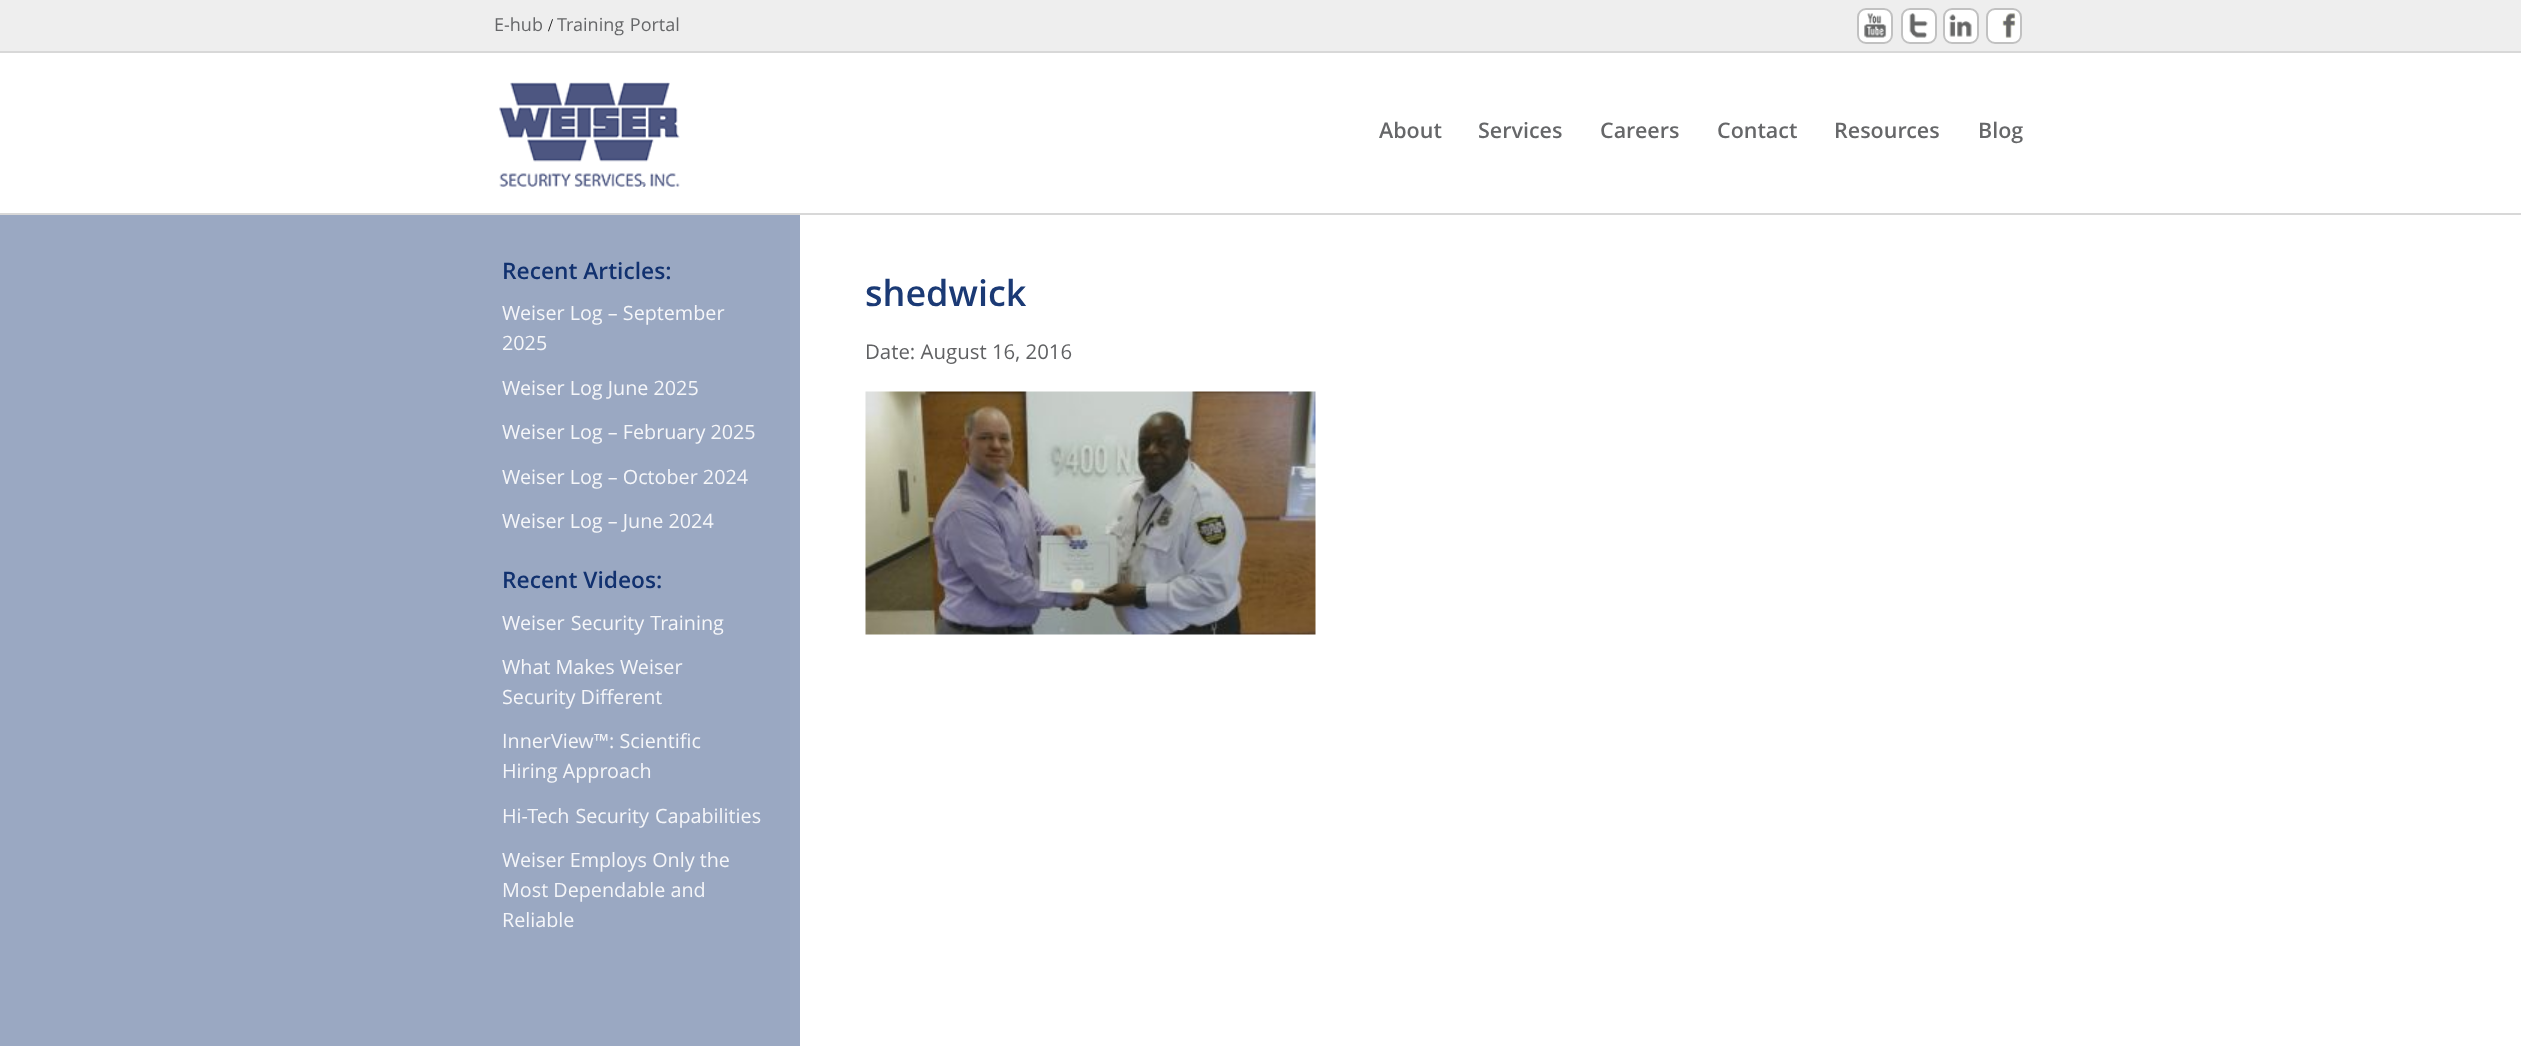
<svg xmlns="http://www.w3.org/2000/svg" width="2521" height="1046">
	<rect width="100%" height="100%" fill="#FFFFFF" />
	<rect x="0" y="0" width="2521" height="51" fill="#EEEEEE" />
	<text x="494" y="31" font-family="Open Sans" font-size="18" fill="#666769">E-hub</text>
	<text x="548" y="31" font-family="Liberation Serif" font-size="18" fill="#000000">/</text>
	<text x="557" y="31" word-spacing="1" font-family="Open Sans" font-size="18" fill="#666769">Training Portal</text>
	<rect x="1857" y="8" width="36" height="36" rx="9" fill="#FFFFFF" />
	<rect x="1858" y="9" width="34" height="34" rx="8" fill="none" stroke="#646464" stroke-opacity="0.4" stroke-width="2" />
	<image x="1864" y="13" width="23" height="25" href="assets/img1.png" />
	<rect x="1901" y="8" width="36" height="36" rx="9" fill="#FFFFFF" />
	<rect x="1902" y="9" width="34" height="34" rx="8" fill="none" stroke="#646464" stroke-opacity="0.4" stroke-width="2" />
	<image x="1909" y="13" width="19" height="25" href="assets/img2.png" />
	<rect x="1943" y="8" width="36" height="36" rx="9" fill="#FFFFFF" />
	<rect x="1944" y="9" width="34" height="34" rx="8" fill="none" stroke="#646464" stroke-opacity="0.4" stroke-width="2" />
	<image x="1949" y="14" width="23" height="23" href="assets/img3.png" />
	<rect x="1986" y="8" width="36" height="36" rx="9" fill="#FFFFFF" />
	<rect x="1987" y="9" width="34" height="34" rx="8" fill="none" stroke="#646464" stroke-opacity="0.4" stroke-width="2" />
	<image x="2002" y="13" width="14" height="25" href="assets/img4.png" />
	<rect x="0" y="51" width="2521" height="2" fill="#D8D8D8" />
	<rect x="0" y="213" width="2521" height="2" fill="#D8D8D8" />
	<image x="499" y="82" width="181" height="105" href="assets/img5.png" />
	<g font-family="Open Sans" font-size="21.5" font-weight="600" fill="#666769">
		<text x="1379" y="138">About</text>
		<text x="1478" y="138">Services</text>
		<text x="1600" y="138">Careers</text>
		<text x="1717" y="138">Contact</text>
		<text x="1834" y="138">Resources</text>
		<text x="1978" y="138">Blog</text>
	</g>
	<rect x="0" y="215" width="800" height="831" fill="#9AA8C2" />
	<text x="502" y="279" font-family="Open Sans" font-size="22.75" font-weight="600" fill="#11316F">Recent Articles:</text>
	<g font-family="Open Sans" font-size="19.75" fill="#F5F6F9">
		<text x="502" y="320">Weiser Log – September</text>
		<text x="502" y="350">2025</text>
		<text x="502" y="395">Weiser Log June 2025</text>
		<text x="502" y="439">Weiser Log – February 2025</text>
		<text x="502" y="484">Weiser Log – October 2024</text>
		<text x="502" y="528">Weiser Log – June 2024</text>
	</g>
	<text x="502" y="588" font-family="Open Sans" font-size="22.75" font-weight="600" fill="#11316F">Recent Videos:</text>
	<g font-family="Open Sans" font-size="19.75" fill="#F5F6F9">
		<text x="502" y="630" word-spacing="1">Weiser Security Training</text>
		<text x="502" y="674">What Makes Weiser</text>
		<text x="502" y="704">Security Different</text>
		<text x="502" y="748">InnerView™: Scientific</text>
		<text x="502" y="778">Hiring Approach</text>
		<text x="502" y="823" word-spacing="1">Hi-Tech Security Capabilities</text>
		<text x="502" y="867">Weiser Employs Only the</text>
		<text x="502" y="897">Most Dependable and</text>
		<text x="502" y="927">Reliable</text>
	</g>
	<text x="865" y="306" font-family="Open Sans" font-size="36" font-weight="600" fill="#1B3A75">shedwick</text>
	<text x="865" y="359" font-family="Open Sans" font-size="20.4" fill="#606163">Date: August 16, 2016</text>
	<image x="865" y="391" width="451" height="244" href="assets/img6.png" />
</svg>
